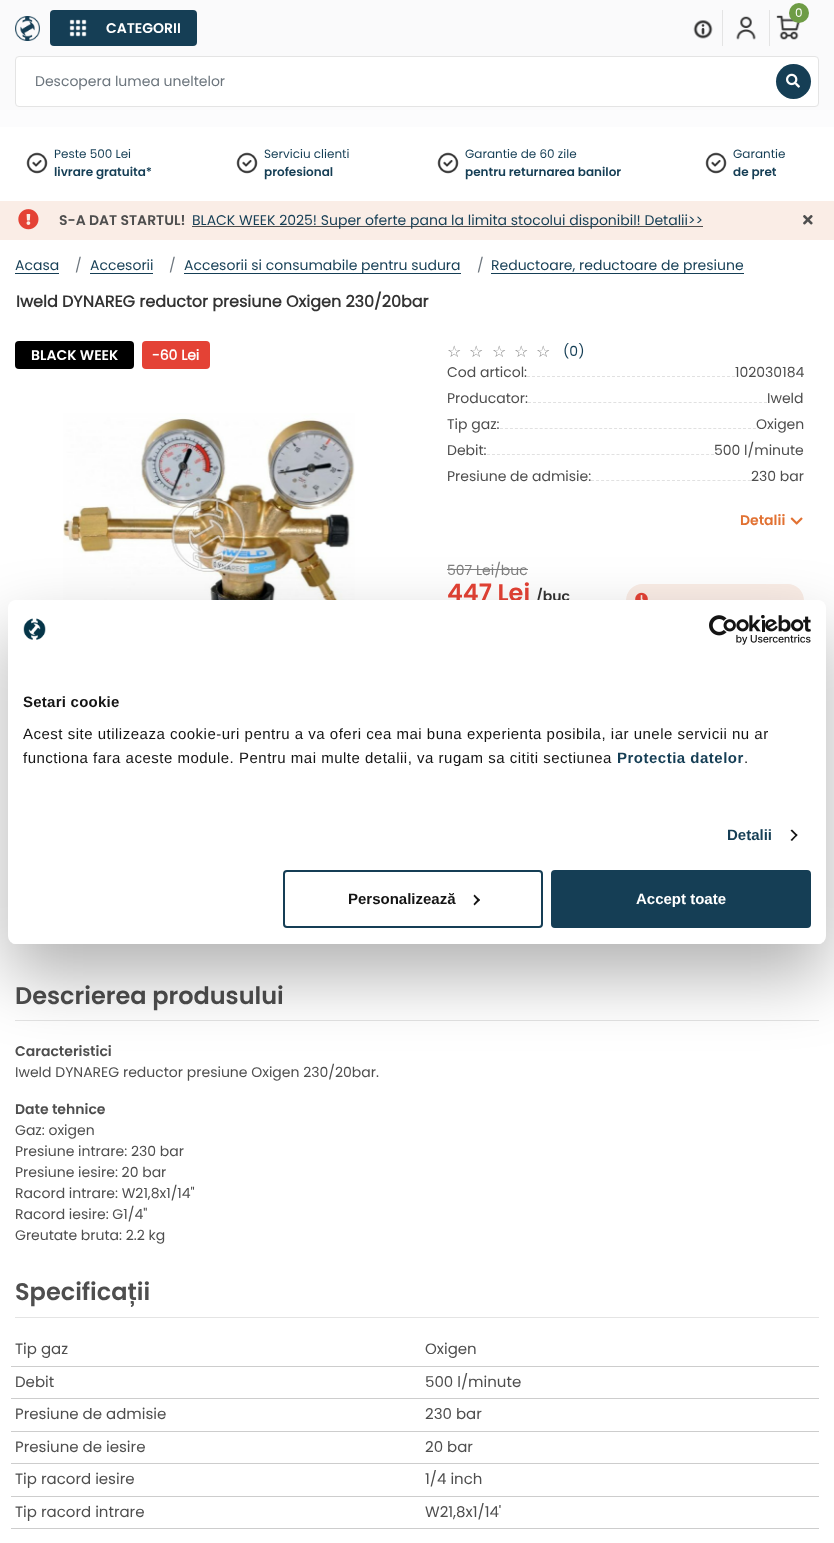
<svg xmlns="http://www.w3.org/2000/svg" width="834" height="1543">
	<defs>
		<clipPath id="clip1"><rect x="8" y="600" width="818" height="344" rx="8" /></clipPath>
	</defs>
	<rect width="100%" height="100%" fill="#FFFFFF" />
	<rect x="0" y="110" width="834" height="17" fill="#FCFCFD" />
	<rect x="0" y="0" width="834" height="110" fill="#FAFAFB" />
	<rect x="722" y="10" width="1" height="36" fill="#E4E4E4" />
	<image x="693" y="20" width="20" height="19" href="assets/img1.png" />
	<rect x="769" y="10" width="1" height="36" fill="#E4E4E4" />
	<image x="736" y="16" width="20" height="24" href="assets/img2.png" />
	<image x="776" y="15" width="25" height="25" href="assets/img3.png" />
	<circle cx="799" cy="13" r="10" fill="#6E9C45" />
	<text x="795" y="17" font-family="Poppins" font-size="12" fill="#FFFFFF">0</text>
	<image x="15" y="16" width="25" height="25" href="assets/img4.png" />
	<rect x="50" y="10" width="147" height="36" rx="4" fill="#153E55" />
	<image x="69" y="19" width="18" height="18" href="assets/img5.png" />
	<text x="106" y="33" font-family="Poppins" font-size="14" font-weight="600" fill="#FFFFFF">CATEGORII</text>
	<rect x="15.5" y="56.5" width="803" height="50" rx="3.5" fill="#FFFFFF" stroke="#E4E4E4" />
	<text x="35" y="86" font-family="Poppins" font-size="14" fill="#6C757D">Descopera lumea uneltelor</text>
	<circle cx="793.5" cy="81.5" r="17.5" fill="#153E55" />
	<image x="786" y="73" width="14" height="15" href="assets/img6.png" />
	<image x="26" y="152" width="22" height="22" href="assets/img7.png" />
	<text x="54" y="158" font-family="Poppins" font-size="12" fill="#153E55">Peste 500 Lei</text>
	<text x="54" y="176" font-family="Poppins" font-size="12" font-weight="600" fill="#153E55">livrare gratuita*</text>
	<image x="236" y="152" width="22" height="22" href="assets/img7.png" />
	<text x="264" y="158" font-family="Poppins" font-size="12" fill="#153E55">Serviciu clienti</text>
	<text x="264" y="176" font-family="Poppins" font-size="12" font-weight="600" fill="#153E55">profesional</text>
	<image x="437" y="152" width="22" height="22" href="assets/img7.png" />
	<text x="465" y="158" font-family="Poppins" font-size="12" fill="#153E55">Garantie de 60 zile</text>
	<text x="465" y="176" font-family="Poppins" font-size="12" font-weight="600" fill="#153E55">pentru returnarea banilor</text>
	<image x="705" y="152" width="22" height="22" href="assets/img8.png" />
	<text x="733" y="158" font-family="Poppins" font-size="12" fill="#153E55">Garantie</text>
	<text x="733" y="176" font-family="Poppins" font-size="12" font-weight="600" fill="#153E55">de pret</text>
	<rect x="0" y="201" width="834" height="39" fill="#FAEDE6" />
	<image x="18" y="209" width="21" height="21" href="assets/img9.png" />
	<text x="59" y="225" font-family="Poppins" font-size="14" font-weight="600" fill="#4E4E4E">S-A DAT STARTUL!</text>
	<rect x="192" y="226" width="511" height="1" fill="#4E4E4E" />
	<text x="192" y="225" font-family="Poppins" font-size="14" fill="#153E55">BLACK WEEK 2025! Super oferte pana la limita stocolui disponibil! Detalii&gt;&gt;</text>
	<image x="803" y="215" width="10" height="10" href="assets/img10.png" />
	<text x="15" y="270" font-family="Poppins" font-size="14" fill="#153E55">Acasa</text>
	<rect x="15" y="273" width="44" height="1" fill="#153E55" />
	<text x="75" y="270" font-family="Poppins" font-size="14" fill="#6C757D">/</text>
	<text x="90" y="270" font-family="Poppins" font-size="14" fill="#153E55">Accesorii</text>
	<rect x="90" y="273" width="63" height="1" fill="#153E55" />
	<text x="169" y="270" font-family="Poppins" font-size="14" fill="#6C757D">/</text>
	<rect x="184" y="273" width="277" height="1" fill="#153E55" />
	<text x="184" y="270" font-family="Poppins" font-size="14" fill="#153E55">Accesorii si consumabile pentru sudura</text>
	<text x="477" y="270" font-family="Poppins" font-size="14" fill="#6C757D">/</text>
	<rect x="491" y="273" width="253" height="1" fill="#153E55" />
	<text x="491" y="270" font-family="Poppins" font-size="14" fill="#153E55">Reductoare, reductoare de presiune</text>
	<text x="16" y="307" font-family="Poppins" font-size="16" font-weight="700" fill="#333333">Iweld DYNAREG reductor presiune Oxigen 230/20bar</text>
	<rect x="15" y="341" width="119" height="28" rx="4" fill="#000000" />
	<text x="31" y="360" font-family="Poppins" font-size="14" font-weight="600" fill="#FFFFFF">BLACK WEEK</text>
	<rect x="142" y="341" width="68" height="28" rx="4" fill="#E44235" />
	<text x="152" y="360" font-family="Poppins" font-size="14" font-weight="700" fill="#FFFFFF">-60 Lei</text>
	<image x="63" y="413" width="292" height="187" href="assets/img11.png" />
	<g font-family="DejaVu Sans" font-size="16" fill="#888888">
		<text x="447" y="357">☆</text>
		<text x="469" y="357">☆</text>
		<text x="492" y="357">☆</text>
		<text x="514" y="357">☆</text>
		<text x="536" y="357">☆</text>
	</g>
	<text x="563" y="356" font-family="Poppins" font-size="14" fill="#153E55">(0)</text>
	<text x="447" y="377" font-family="Poppins" font-size="14" fill="#4E4E4E">Cod articol:</text>
	<path d="M527 376.5H735" fill="none" stroke="#E1E1E1" stroke-dasharray="3 2" />
	<g font-family="Poppins" font-size="14" fill="#4E4E4E">
		<text x="735" y="377">102030184</text>
		<text x="447" y="403">Producator:</text>
	</g>
	<path d="M528 402.5H767" fill="none" stroke="#E1E1E1" stroke-dasharray="3 2.02" />
	<g font-family="Poppins" font-size="14" fill="#4E4E4E">
		<text x="767" y="403">Iweld</text>
		<text x="447" y="429">Tip gaz:</text>
	</g>
	<path d="M500 428.5H756" fill="none" stroke="#E1E1E1" stroke-dasharray="3 1.96" />
	<g font-family="Poppins" font-size="14" fill="#4E4E4E">
		<text x="756" y="429">Oxigen</text>
		<text x="447" y="455">Debit:</text>
	</g>
	<path d="M487 454.5H714" fill="none" stroke="#E1E1E1" stroke-dasharray="3 1.98" />
	<g font-family="Poppins" font-size="14" fill="#4E4E4E">
		<text x="714" y="455">500 l/minute</text>
		<text x="447" y="481">Presiune de admisie:</text>
	</g>
	<path d="M591 480.5H751" fill="none" stroke="#E1E1E1" stroke-dasharray="3 2.06" />
	<text x="751" y="481" font-family="Poppins" font-size="14" fill="#4E4E4E">230 bar</text>
	<text x="740" y="525" font-family="Poppins" font-size="14" font-weight="600" fill="#E17132">Detalii</text>
	<image x="790" y="517" width="13" height="8" href="assets/img12.png" />
	<text x="447" y="575" font-family="Poppins" font-size="14" fill="#808080">507 Lei/buc</text>
	<rect x="447" y="569" width="81" height="1" fill="#808080" />
	<text x="447" y="601" font-family="Poppins" font-size="24" font-weight="600" fill="#E44235">447 Lei</text>
	<text x="536" y="601" font-family="Poppins" font-size="14" font-weight="600" fill="#333333">/buc</text>
	<rect x="626" y="584" width="178" height="33" rx="16.5" fill="#FAEDE6" />
	<image x="635" y="592" width="13" height="8" href="assets/img13.png" />
	<rect x="15" y="1020" width="804" height="1" fill="#E4E4E4" />
	<text x="15" y="1004" font-family="Poppins" font-size="24" font-weight="600" fill="#4E4E4E">Descrierea produsului</text>
	<text x="15" y="1056" font-family="Poppins" font-size="14" font-weight="600" fill="#4E4E4E">Caracteristici</text>
	<text x="15" y="1077" font-family="Poppins" font-size="14" fill="#4E4E4E">Iweld DYNAREG reductor presiune Oxigen 230/20bar.</text>
	<text x="15" y="1114" font-family="Poppins" font-size="14" font-weight="600" fill="#4E4E4E">Date tehnice</text>
	<g font-family="Poppins" font-size="14" fill="#4E4E4E">
		<text x="15" y="1135">Gaz: oxigen</text>
		<text x="15" y="1156">Presiune intrare: 230 bar</text>
		<text x="15" y="1177">Presiune iesire: 20 bar</text>
		<text x="15" y="1198">Racord intrare: W21,8x1/14"</text>
		<text x="15" y="1219">Racord iesire: G1/4"</text>
		<text x="15" y="1240">Greutate bruta: 2.2 kg</text>
	</g>
	<rect x="15" y="1317" width="804" height="1" fill="#E4E4E4" />
	<text x="15" y="1300" font-family="Poppins" font-size="24" font-weight="600" fill="#4E4E4E">Specificații</text>
	<g font-family="Poppins" font-size="15" fill="#4E4E4E">
		<text x="15" y="1354">Tip gaz</text>
		<text x="425" y="1354">Oxigen</text>
	</g>
	<rect x="11" y="1366" width="808" height="1" fill="#CDCDCD" />
	<g font-family="Poppins" font-size="15" fill="#4E4E4E">
		<text x="15" y="1387">Debit</text>
		<text x="425" y="1387">500 l/minute</text>
	</g>
	<rect x="11" y="1398" width="808" height="1" fill="#CDCDCD" />
	<g font-family="Poppins" font-size="15" fill="#4E4E4E">
		<text x="15" y="1419">Presiune de admisie</text>
		<text x="425" y="1419">230 bar</text>
	</g>
	<rect x="11" y="1431" width="808" height="1" fill="#CDCDCD" />
	<g font-family="Poppins" font-size="15" fill="#4E4E4E">
		<text x="15" y="1452">Presiune de iesire</text>
		<text x="425" y="1452">20 bar</text>
	</g>
	<rect x="11" y="1463" width="808" height="1" fill="#CDCDCD" />
	<g font-family="Poppins" font-size="15" fill="#4E4E4E">
		<text x="15" y="1484">Tip racord iesire</text>
		<text x="425" y="1484">1/4 inch</text>
	</g>
	<rect x="11" y="1496" width="808" height="1" fill="#CDCDCD" />
	<g font-family="Poppins" font-size="15" fill="#4E4E4E">
		<text x="15" y="1517">Tip racord intrare</text>
		<text x="425" y="1517">W21,8x1/14'</text>
	</g>
	<rect x="11" y="1528" width="808" height="1" fill="#CDCDCD" />
	<rect x="8" y="632" width="818" height="344" rx="8" fill="#000000" fill-opacity="0.3" filter="blur(34px)" />
	<rect x="8" y="600" width="818" height="344" rx="8" fill="#FFFFFF" />
	<image x="23" y="618" width="23" height="22" href="assets/img14.png" />
	<image x="709" y="615" width="102" height="30" href="assets/img15.png" />
	<text x="23" y="707" font-family="Liberation Sans" font-size="15" font-weight="700" letter-spacing="0.25" fill="#141414">Setari cookie</text>
	<g font-family="Liberation Sans" font-size="15" letter-spacing="0.5" fill="#141414">
		<text x="23" y="739">Acest site utilizeaza cookie-uri pentru a va oferi cea mai buna experienta posibila, iar unele servicii nu ar</text>
		<text x="23" y="763">functiona fara aceste module. Pentru mai multe detalii, va rugam sa cititi sectiunea</text>
	</g>
	<text x="617" y="763" font-family="Liberation Sans" font-size="15" font-weight="700" letter-spacing="0.5" fill="#153E55">Protectia datelor</text>
	<text x="744" y="763" font-family="Liberation Sans" font-size="15" letter-spacing="0.5" fill="#141414">.</text>
	<text x="727" y="840" font-family="Liberation Sans" font-size="15" font-weight="700" fill="#153E55">Detalii</text>
	<path d="M792 829.5L797.5 835L796.5 836.5L790.5 830.5Z" fill="#141414" />
	<path d="M796.5 834L797.5 835L792 841L790.5 840Z" fill="#141414" />
	<g clip-path="url(#clip1)">
		<rect x="8" y="943" width="818" height="1" fill="#FFFFFF" />
	</g>
	<rect x="284" y="871" width="258" height="56" rx="3" fill="none" stroke="#153E55" stroke-width="2" />
	<text x="348" y="904" font-family="Liberation Sans" font-size="15" font-weight="700" fill="#141414">Personalizează</text>
	<path d="M474.5 894.5L480 900L478.5 901.5L473.5 896Z" fill="#141414" />
	<path d="M478.5 898.5L480 900L474.5 905.5L473.5 904Z" fill="#141414" />
	<rect x="552" y="871" width="258" height="56" rx="3" fill="#153E55" stroke="#153E55" stroke-width="2" />
	<text x="636" y="904" font-family="Liberation Sans" font-size="15" font-weight="700" fill="#FFFFFF">Accept toate</text>
</svg>
